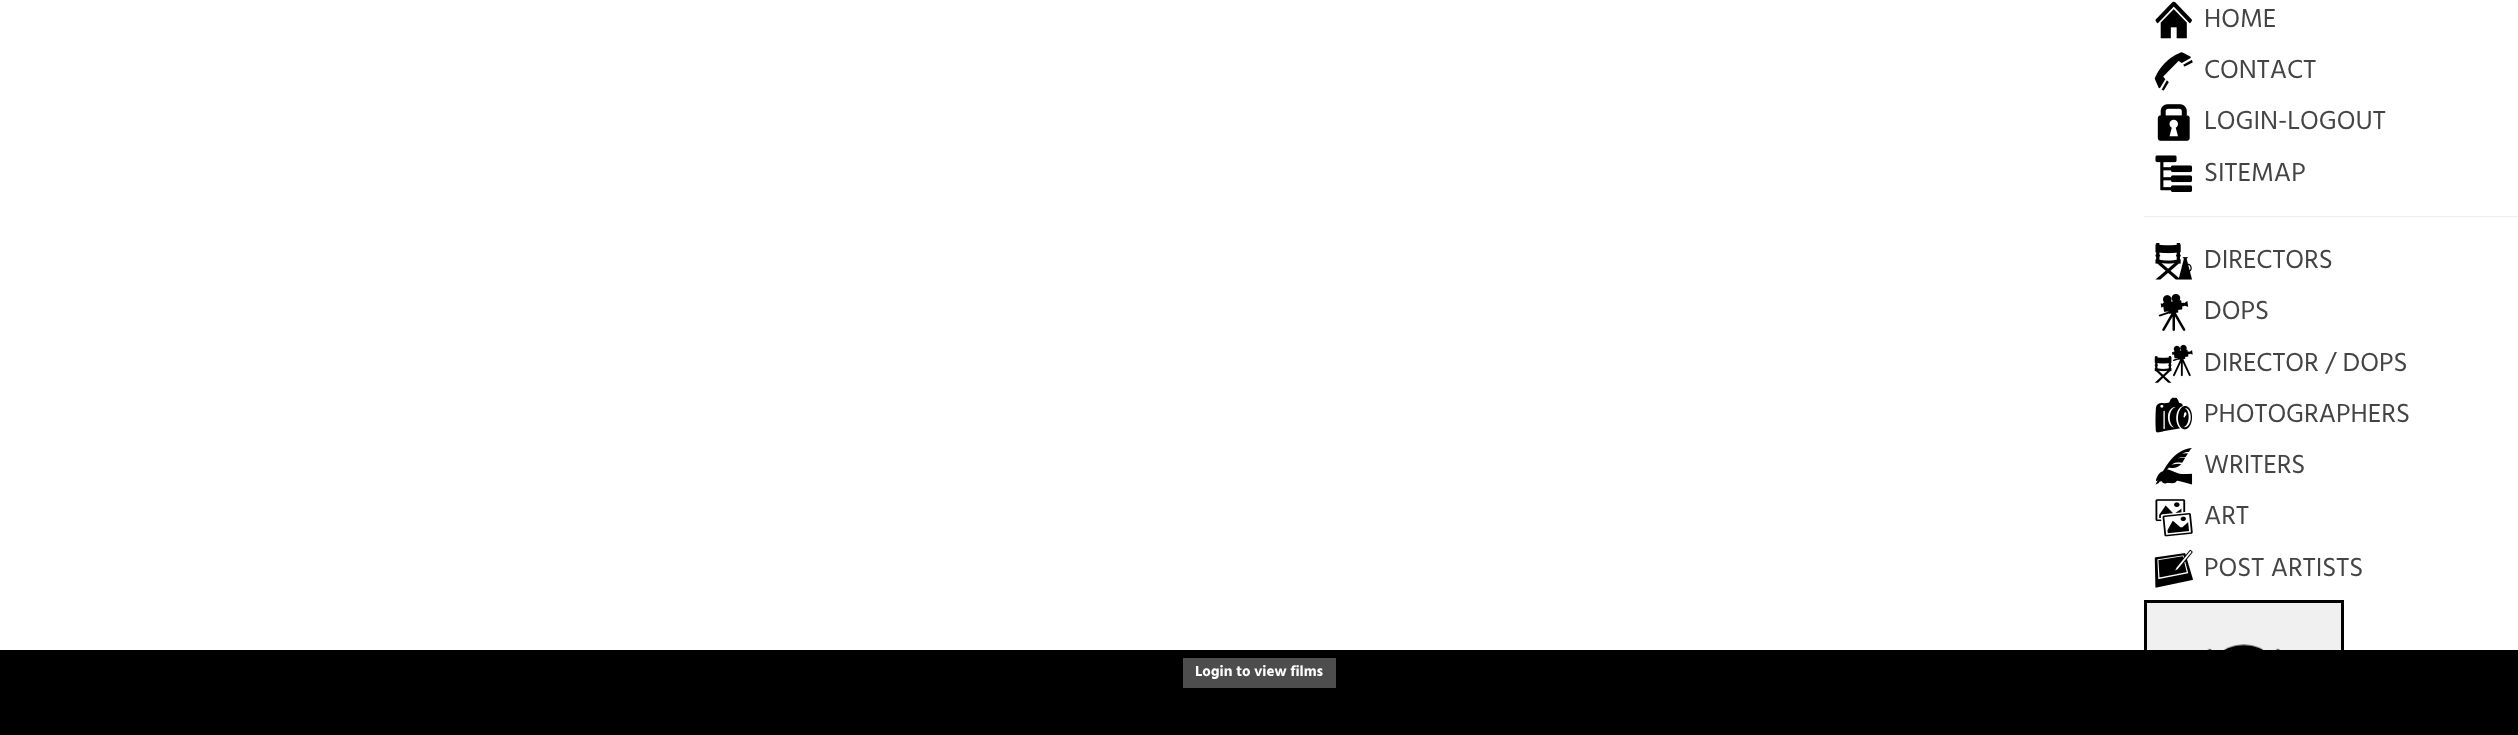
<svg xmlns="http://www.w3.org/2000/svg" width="2518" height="735">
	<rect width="100%" height="100%" fill="#FFFFFF" />
	<image x="2155" y="1" width="37" height="38" href="assets/img1.png" />
	<text x="2204" y="27" font-family="Hind" font-size="26.75" fill="#444444">HOME</text>
	<image x="2154" y="52" width="39" height="39" href="assets/img2.png" />
	<text x="2204" y="78" font-family="Hind" font-size="26.75" fill="#444444">CONTACT</text>
	<image x="2157" y="104" width="33" height="37" href="assets/img3.png" />
	<text x="2204" y="129" font-family="Hind" font-size="26.75" fill="#444444">LOGIN-LOGOUT</text>
	<image x="2155" y="155" width="38" height="37" href="assets/img4.png" />
	<text x="2204" y="181" font-family="Hind" font-size="26.75" fill="#444444">SITEMAP</text>
	<rect x="2144" y="216" width="374" height="1" fill="#EEEEEE" />
	<image x="2155" y="243" width="37" height="37" href="assets/img5.png" />
	<text x="2204" y="268" font-family="Hind" font-size="26.75" fill="#444444">DIRECTORS</text>
	<image x="2158" y="293" width="31" height="38" href="assets/img6.png" />
	<text x="2204" y="319" font-family="Hind" font-size="26.75" fill="#444444">DOPS</text>
	<image x="2154" y="344" width="39" height="39" href="assets/img7.png" />
	<text x="2204" y="371" font-family="Hind" font-size="26.75" fill="#444444">DIRECTOR / DOPS</text>
	<image x="2155" y="397" width="37" height="36" href="assets/img8.png" />
	<text x="2204" y="422" font-family="Hind" font-size="26.75" fill="#444444">PHOTOGRAPHERS</text>
	<image x="2155" y="448" width="38" height="37" href="assets/img9.png" />
	<text x="2204" y="473" font-family="Hind" font-size="26.75" fill="#444444">WRITERS</text>
	<image x="2155" y="499" width="38" height="38" href="assets/img10.png" />
	<text x="2204" y="524" font-family="Hind" font-size="26.75" fill="#444444">ART</text>
	<image x="2154" y="549" width="39" height="39" href="assets/img11.png" />
	<text x="2204" y="576" font-family="Hind" font-size="26.75" fill="#444444">POST ARTISTS</text>
	<rect x="2147" y="603" width="194" height="47" fill="#F0F0F0" />
	<rect x="2145.5" y="601.5" width="197" height="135" fill="none" stroke="#000000" stroke-width="3" />
	<image x="2207" y="644" width="73" height="6" href="assets/img12.png" />
	<rect x="0" y="650" width="2518" height="85" fill="#000000" />
	<rect x="1183" y="658" width="153" height="30" fill="#4D4D4D" />
	<text x="1195" y="676" font-family="Hind" font-size="15" font-weight="700" fill="#FFFFFF">Login to view films</text>
</svg>
